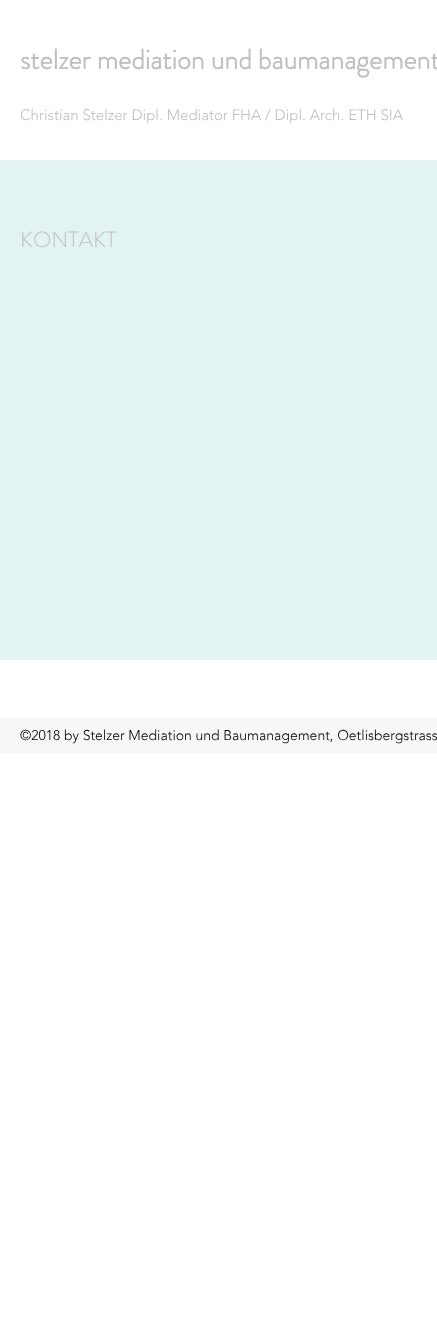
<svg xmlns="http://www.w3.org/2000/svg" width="437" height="1339">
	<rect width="100%" height="100%" fill="#FFFFFF" />
	<text x="20" y="69" font-family="'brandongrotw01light'" font-size="28" font-weight="700" fill="#BFBFBF">stelzer mediation und baumanagement</text>
	<text x="20" y="120" font-family="'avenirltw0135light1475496'" font-size="15" font-weight="300" fill="#BFBFBF">Christian Stelzer Dipl. Mediator FHA / Dipl. Arch. ETH SIA</text>
	<rect x="0" y="160" width="437" height="500" fill="#E3F2F3" />
	<text x="20" y="247" font-family="'brandongrotw01light'" font-size="22" font-weight="300" fill="#BFBFBF">KONTAKT</text>
	<rect x="0" y="718" width="437" height="35" fill="#F7F7F7" />
	<text x="20" y="740" font-family="'avenirltw0135light1475496'" font-size="14" font-weight="300" fill="#000000">©2018 by Stelzer Mediation und Baumanagement, Oetlisbergstrass</text>
</svg>
